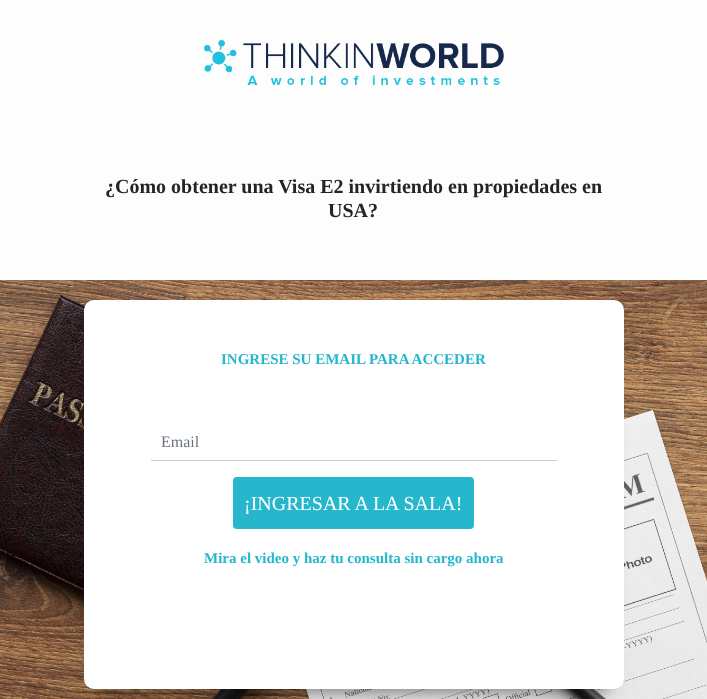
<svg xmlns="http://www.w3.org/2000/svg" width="707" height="699">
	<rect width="100%" height="100%" fill="#FDFDFD" />
	<image x="204" y="39" width="300" height="46" href="assets/img1.png" />
	<g font-family="Liberation Serif" font-size="20" font-weight="700" fill="#212529">
		<text x="105" y="193">¿Cómo obtener una Visa E2 invirtiendo en propiedades en</text>
		<text x="328" y="217">USA?</text>
	</g>
	<image x="0" y="280" width="707" height="419" href="assets/img2.png" />
	<rect x="99" y="333" width="510" height="359" fill="#000000" fill-opacity="0.47" filter="blur(8.5px)" />
	<rect x="84" y="300" width="540" height="389" rx="10" fill="#FFFFFF" />
	<text x="221" y="364" font-family="Liberation Serif" font-size="15" font-weight="700" fill="#26B7CD">INGRESE SU EMAIL PARA ACCEDER</text>
	<rect x="151" y="460" width="406" height="1" fill="#CCCCCC" />
	<text x="161" y="447" font-family="Liberation Serif" font-size="16" fill="#6C757D">Email</text>
	<rect x="233" y="477" width="241" height="52" rx="4" fill="#26B7CD" />
	<text x="244" y="510" font-family="Liberation Serif" font-size="20" fill="#FFFFFF">¡INGRESAR A LA SALA!</text>
	<text x="204" y="563" font-family="Liberation Serif" font-size="15" font-weight="700" fill="#26B7CD">Mira el video y haz tu consulta sin cargo ahora</text>
</svg>
